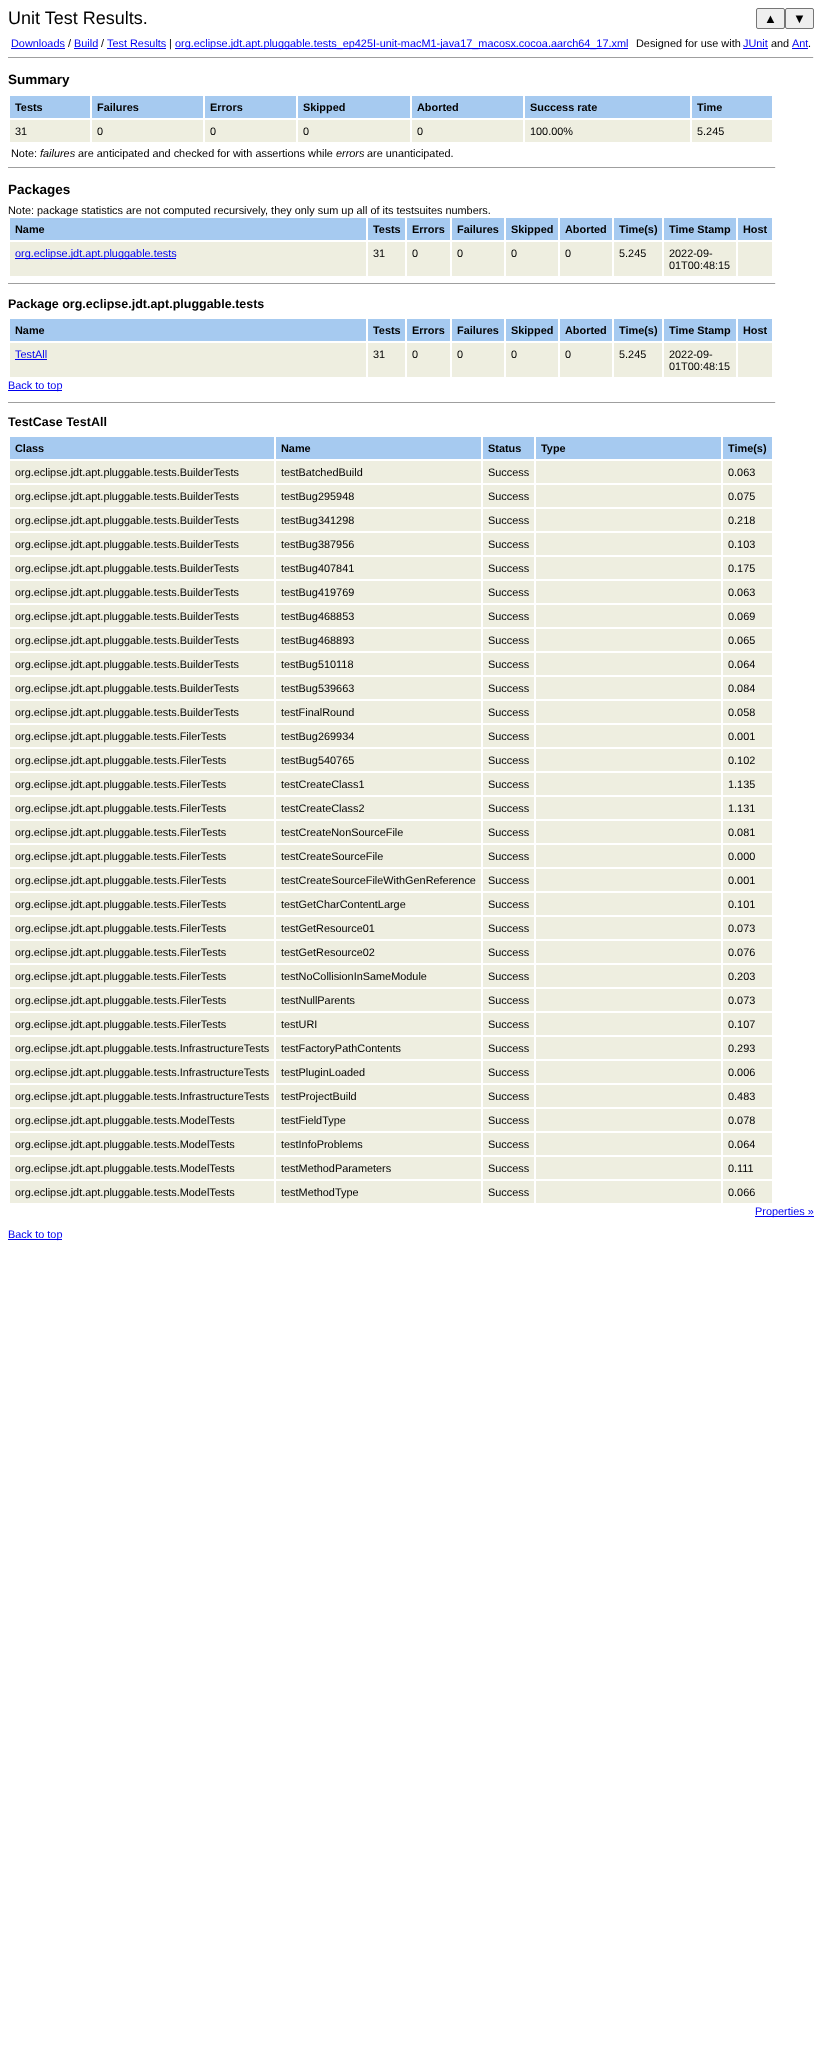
<svg xmlns="http://www.w3.org/2000/svg" width="822" height="2057">
	<rect width="100%" height="100%" fill="#FFFFFF" />
	<text x="8" y="24" font-family="Liberation Sans" font-size="18" fill="#000000">Unit Test Results.</text>
	<rect x="756.5" y="8.5" width="28" height="20" rx="1.5" fill="#EFEFEF" stroke="#767676" />
	<text x="764" y="23" font-family="Liberation Sans" font-size="13" fill="#000000">▲</text>
	<rect x="785.5" y="8.5" width="28" height="20" rx="1.5" fill="#EFEFEF" stroke="#767676" />
	<text x="793" y="23" font-family="Liberation Sans" font-size="13" fill="#000000">▼</text>
	<text x="11" y="47" font-family="Liberation Sans" font-size="10.9" fill="#0000EE">Downloads</text>
	<rect x="11" y="48" width="54" height="1" fill="#0000EE" />
	<text x="68" y="47" font-family="Liberation Sans" font-size="10.9" fill="#000000">/</text>
	<text x="74" y="47" font-family="Liberation Sans" font-size="10.9" fill="#0000EE">Build</text>
	<rect x="74" y="48" width="24" height="1" fill="#0000EE" />
	<text x="101" y="47" font-family="Liberation Sans" font-size="10.9" fill="#000000">/</text>
	<text x="107" y="47" font-family="Liberation Sans" font-size="10.9" fill="#0000EE">Test Results</text>
	<rect x="107" y="48" width="59" height="1" fill="#0000EE" />
	<text x="169" y="47" font-family="Liberation Sans" font-size="10.9" fill="#000000">|</text>
	<rect x="175" y="48" width="453" height="1" fill="#0000EE" />
	<text x="175" y="47" font-family="Liberation Sans" font-size="10.9" fill="#0000EE">org.eclipse.jdt.apt.pluggable.tests_ep425I-unit-macM1-java17_macosx.cocoa.aarch64_17.xml</text>
	<text x="636" y="47" font-family="Liberation Sans" font-size="10.9" fill="#000000">Designed for use with</text>
	<text x="743" y="47" font-family="Liberation Sans" font-size="10.9" fill="#0000EE">JUnit</text>
	<rect x="743" y="48" width="25" height="1" fill="#0000EE" />
	<text x="771" y="47" font-family="Liberation Sans" font-size="10.9" fill="#000000">and</text>
	<text x="792" y="47" font-family="Liberation Sans" font-size="10.9" fill="#0000EE">Ant</text>
	<rect x="792" y="48" width="16" height="1" fill="#0000EE" />
	<text x="808" y="47" font-family="Liberation Sans" font-size="10.9" fill="#000000">.</text>
	<rect x="8" y="57" width="806" height="1" fill="#9F9F9F" />
	<rect x="813" y="57" width="1" height="1" fill="#EEEEEE" />
	<text x="8" y="84" font-family="Liberation Sans" font-size="13.5" font-weight="700" fill="#000000">Summary</text>
	<rect x="10" y="96" width="80" height="22" fill="#A6CAF0" />
	<text x="15" y="111" font-family="Liberation Sans" font-size="10.9" font-weight="700" fill="#000000">Tests</text>
	<rect x="92" y="96" width="111" height="22" fill="#A6CAF0" />
	<text x="97" y="111" font-family="Liberation Sans" font-size="10.9" font-weight="700" fill="#000000">Failures</text>
	<rect x="205" y="96" width="91" height="22" fill="#A6CAF0" />
	<text x="210" y="111" font-family="Liberation Sans" font-size="10.9" font-weight="700" fill="#000000">Errors</text>
	<rect x="298" y="96" width="112" height="22" fill="#A6CAF0" />
	<text x="303" y="111" font-family="Liberation Sans" font-size="10.9" font-weight="700" fill="#000000">Skipped</text>
	<rect x="412" y="96" width="111" height="22" fill="#A6CAF0" />
	<text x="417" y="111" font-family="Liberation Sans" font-size="10.9" font-weight="700" fill="#000000">Aborted</text>
	<rect x="525" y="96" width="165" height="22" fill="#A6CAF0" />
	<text x="530" y="111" font-family="Liberation Sans" font-size="10.9" font-weight="700" fill="#000000">Success rate</text>
	<rect x="692" y="96" width="80" height="22" fill="#A6CAF0" />
	<text x="697" y="111" font-family="Liberation Sans" font-size="10.9" font-weight="700" fill="#000000">Time</text>
	<rect x="10" y="120" width="80" height="22" fill="#EEEEE0" />
	<text x="15" y="135" font-family="Liberation Sans" font-size="10.9" fill="#000000">31</text>
	<rect x="92" y="120" width="111" height="22" fill="#EEEEE0" />
	<text x="97" y="135" font-family="Liberation Sans" font-size="10.9" fill="#000000">0</text>
	<rect x="205" y="120" width="91" height="22" fill="#EEEEE0" />
	<text x="210" y="135" font-family="Liberation Sans" font-size="10.9" fill="#000000">0</text>
	<rect x="298" y="120" width="112" height="22" fill="#EEEEE0" />
	<text x="303" y="135" font-family="Liberation Sans" font-size="10.9" fill="#000000">0</text>
	<rect x="412" y="120" width="111" height="22" fill="#EEEEE0" />
	<text x="417" y="135" font-family="Liberation Sans" font-size="10.9" fill="#000000">0</text>
	<rect x="525" y="120" width="165" height="22" fill="#EEEEE0" />
	<text x="530" y="135" font-family="Liberation Sans" font-size="10.9" fill="#000000">100.00%</text>
	<rect x="692" y="120" width="80" height="22" fill="#EEEEE0" />
	<g font-family="Liberation Sans" font-size="10.9" fill="#000000">
		<text x="697" y="135">5.245</text>
		<text x="11" y="157">Note:</text>
	</g>
	<text x="40" y="157" font-family="Liberation Sans" font-size="10.9" font-style="italic" fill="#000000">failures</text>
	<text x="78" y="157" font-family="Liberation Sans" font-size="10.9" fill="#000000">are anticipated and checked for with assertions while</text>
	<text x="336" y="157" font-family="Liberation Sans" font-size="10.9" font-style="italic" fill="#000000">errors</text>
	<text x="367" y="157" font-family="Liberation Sans" font-size="10.9" fill="#000000">are unanticipated.</text>
	<rect x="8" y="167" width="768" height="1" fill="#9F9F9F" />
	<rect x="775" y="167" width="1" height="1" fill="#EEEEEE" />
	<text x="8" y="194" font-family="Liberation Sans" font-size="13.5" font-weight="700" fill="#000000">Packages</text>
	<text x="8" y="214" font-family="Liberation Sans" font-size="10.9" fill="#000000">Note: package statistics are not computed recursively, they only sum up all of its testsuites numbers.</text>
	<rect x="10" y="218" width="356" height="22" fill="#A6CAF0" />
	<text x="15" y="233" font-family="Liberation Sans" font-size="10.9" font-weight="700" fill="#000000">Name</text>
	<rect x="368" y="218" width="37" height="22" fill="#A6CAF0" />
	<text x="373" y="233" font-family="Liberation Sans" font-size="10.9" font-weight="700" fill="#000000">Tests</text>
	<rect x="407" y="218" width="43" height="22" fill="#A6CAF0" />
	<text x="412" y="233" font-family="Liberation Sans" font-size="10.9" font-weight="700" fill="#000000">Errors</text>
	<rect x="452" y="218" width="52" height="22" fill="#A6CAF0" />
	<text x="457" y="233" font-family="Liberation Sans" font-size="10.9" font-weight="700" fill="#000000">Failures</text>
	<rect x="506" y="218" width="52" height="22" fill="#A6CAF0" />
	<text x="511" y="233" font-family="Liberation Sans" font-size="10.9" font-weight="700" fill="#000000">Skipped</text>
	<rect x="560" y="218" width="52" height="22" fill="#A6CAF0" />
	<text x="565" y="233" font-family="Liberation Sans" font-size="10.9" font-weight="700" fill="#000000">Aborted</text>
	<rect x="614" y="218" width="48" height="22" fill="#A6CAF0" />
	<text x="619" y="233" font-family="Liberation Sans" font-size="10.9" font-weight="700" fill="#000000">Time(s)</text>
	<rect x="664" y="218" width="72" height="22" fill="#A6CAF0" />
	<text x="669" y="233" font-family="Liberation Sans" font-size="10.9" font-weight="700" fill="#000000">Time Stamp</text>
	<rect x="738" y="218" width="34" height="22" fill="#A6CAF0" />
	<text x="743" y="233" font-family="Liberation Sans" font-size="10.9" font-weight="700" fill="#000000">Host</text>
	<rect x="10" y="242" width="356" height="34" fill="#EEEEE0" />
	<rect x="15" y="258" width="161" height="1" fill="#0000EE" />
	<text x="15" y="257" font-family="Liberation Sans" font-size="10.9" fill="#0000EE">org.eclipse.jdt.apt.pluggable.tests</text>
	<rect x="368" y="242" width="37" height="34" fill="#EEEEE0" />
	<text x="373" y="257" font-family="Liberation Sans" font-size="10.9" fill="#000000">31</text>
	<rect x="407" y="242" width="43" height="34" fill="#EEEEE0" />
	<text x="412" y="257" font-family="Liberation Sans" font-size="10.9" fill="#000000">0</text>
	<rect x="452" y="242" width="52" height="34" fill="#EEEEE0" />
	<text x="457" y="257" font-family="Liberation Sans" font-size="10.9" fill="#000000">0</text>
	<rect x="506" y="242" width="52" height="34" fill="#EEEEE0" />
	<text x="511" y="257" font-family="Liberation Sans" font-size="10.9" fill="#000000">0</text>
	<rect x="560" y="242" width="52" height="34" fill="#EEEEE0" />
	<text x="565" y="257" font-family="Liberation Sans" font-size="10.9" fill="#000000">0</text>
	<rect x="614" y="242" width="48" height="34" fill="#EEEEE0" />
	<text x="619" y="257" font-family="Liberation Sans" font-size="10.9" fill="#000000">5.245</text>
	<rect x="664" y="242" width="72" height="34" fill="#EEEEE0" />
	<g font-family="Liberation Sans" font-size="10.9" fill="#000000">
		<text x="669" y="257">2022-09-</text>
		<text x="669" y="269">01T00:48:15</text>
	</g>
	<rect x="738" y="242" width="34" height="34" fill="#EEEEE0" />
	<rect x="8" y="283" width="768" height="1" fill="#9F9F9F" />
	<rect x="775" y="283" width="1" height="1" fill="#EEEEEE" />
	<text x="8" y="308" font-family="Liberation Sans" font-size="12.5" font-weight="700" fill="#000000">Package org.eclipse.jdt.apt.pluggable.tests</text>
	<rect x="10" y="319" width="356" height="22" fill="#A6CAF0" />
	<text x="15" y="334" font-family="Liberation Sans" font-size="10.9" font-weight="700" fill="#000000">Name</text>
	<rect x="368" y="319" width="37" height="22" fill="#A6CAF0" />
	<text x="373" y="334" font-family="Liberation Sans" font-size="10.9" font-weight="700" fill="#000000">Tests</text>
	<rect x="407" y="319" width="43" height="22" fill="#A6CAF0" />
	<text x="412" y="334" font-family="Liberation Sans" font-size="10.9" font-weight="700" fill="#000000">Errors</text>
	<rect x="452" y="319" width="52" height="22" fill="#A6CAF0" />
	<text x="457" y="334" font-family="Liberation Sans" font-size="10.9" font-weight="700" fill="#000000">Failures</text>
	<rect x="506" y="319" width="52" height="22" fill="#A6CAF0" />
	<text x="511" y="334" font-family="Liberation Sans" font-size="10.9" font-weight="700" fill="#000000">Skipped</text>
	<rect x="560" y="319" width="52" height="22" fill="#A6CAF0" />
	<text x="565" y="334" font-family="Liberation Sans" font-size="10.9" font-weight="700" fill="#000000">Aborted</text>
	<rect x="614" y="319" width="48" height="22" fill="#A6CAF0" />
	<text x="619" y="334" font-family="Liberation Sans" font-size="10.9" font-weight="700" fill="#000000">Time(s)</text>
	<rect x="664" y="319" width="72" height="22" fill="#A6CAF0" />
	<text x="669" y="334" font-family="Liberation Sans" font-size="10.9" font-weight="700" fill="#000000">Time Stamp</text>
	<rect x="738" y="319" width="34" height="22" fill="#A6CAF0" />
	<text x="743" y="334" font-family="Liberation Sans" font-size="10.9" font-weight="700" fill="#000000">Host</text>
	<rect x="10" y="343" width="356" height="34" fill="#EEEEE0" />
	<text x="15" y="358" font-family="Liberation Sans" font-size="10.9" fill="#0000EE">TestAll</text>
	<rect x="15" y="359" width="32" height="1" fill="#0000EE" />
	<rect x="368" y="343" width="37" height="34" fill="#EEEEE0" />
	<text x="373" y="358" font-family="Liberation Sans" font-size="10.9" fill="#000000">31</text>
	<rect x="407" y="343" width="43" height="34" fill="#EEEEE0" />
	<text x="412" y="358" font-family="Liberation Sans" font-size="10.9" fill="#000000">0</text>
	<rect x="452" y="343" width="52" height="34" fill="#EEEEE0" />
	<text x="457" y="358" font-family="Liberation Sans" font-size="10.9" fill="#000000">0</text>
	<rect x="506" y="343" width="52" height="34" fill="#EEEEE0" />
	<text x="511" y="358" font-family="Liberation Sans" font-size="10.9" fill="#000000">0</text>
	<rect x="560" y="343" width="52" height="34" fill="#EEEEE0" />
	<text x="565" y="358" font-family="Liberation Sans" font-size="10.9" fill="#000000">0</text>
	<rect x="614" y="343" width="48" height="34" fill="#EEEEE0" />
	<text x="619" y="358" font-family="Liberation Sans" font-size="10.9" fill="#000000">5.245</text>
	<rect x="664" y="343" width="72" height="34" fill="#EEEEE0" />
	<g font-family="Liberation Sans" font-size="10.9" fill="#000000">
		<text x="669" y="358">2022-09-</text>
		<text x="669" y="370">01T00:48:15</text>
	</g>
	<rect x="738" y="343" width="34" height="34" fill="#EEEEE0" />
	<rect x="8" y="390" width="54" height="1" fill="#0000EE" />
	<text x="8" y="389" font-family="Liberation Sans" font-size="10.9" fill="#0000EE">Back to top</text>
	<rect x="8" y="402" width="768" height="1" fill="#9F9F9F" />
	<rect x="775" y="402" width="1" height="1" fill="#EEEEEE" />
	<text x="8" y="426" font-family="Liberation Sans" font-size="12.5" font-weight="700" fill="#000000">TestCase TestAll</text>
	<rect x="10" y="437" width="264" height="22" fill="#A6CAF0" />
	<text x="15" y="452" font-family="Liberation Sans" font-size="10.9" font-weight="700" fill="#000000">Class</text>
	<rect x="276" y="437" width="205" height="22" fill="#A6CAF0" />
	<text x="281" y="452" font-family="Liberation Sans" font-size="10.9" font-weight="700" fill="#000000">Name</text>
	<rect x="483" y="437" width="51" height="22" fill="#A6CAF0" />
	<text x="488" y="452" font-family="Liberation Sans" font-size="10.9" font-weight="700" fill="#000000">Status</text>
	<rect x="536" y="437" width="185" height="22" fill="#A6CAF0" />
	<text x="541" y="452" font-family="Liberation Sans" font-size="10.9" font-weight="700" fill="#000000">Type</text>
	<rect x="723" y="437" width="49" height="22" fill="#A6CAF0" />
	<text x="728" y="452" font-family="Liberation Sans" font-size="10.9" font-weight="700" fill="#000000">Time(s)</text>
	<rect x="10" y="461" width="264" height="22" fill="#EEEEE0" />
	<text x="15" y="476" font-family="Liberation Sans" font-size="10.9" fill="#000000">org.eclipse.jdt.apt.pluggable.tests.BuilderTests</text>
	<rect x="276" y="461" width="205" height="22" fill="#EEEEE0" />
	<text x="281" y="476" font-family="Liberation Sans" font-size="10.9" fill="#000000">testBatchedBuild</text>
	<rect x="483" y="461" width="51" height="22" fill="#EEEEE0" />
	<text x="488" y="476" font-family="Liberation Sans" font-size="10.9" fill="#000000">Success</text>
	<rect x="536" y="461" width="185" height="22" fill="#EEEEE0" />
	<rect x="723" y="461" width="49" height="22" fill="#EEEEE0" />
	<text x="728" y="476" font-family="Liberation Sans" font-size="10.9" fill="#000000">0.063</text>
	<rect x="10" y="485" width="264" height="22" fill="#EEEEE0" />
	<text x="15" y="500" font-family="Liberation Sans" font-size="10.9" fill="#000000">org.eclipse.jdt.apt.pluggable.tests.BuilderTests</text>
	<rect x="276" y="485" width="205" height="22" fill="#EEEEE0" />
	<text x="281" y="500" font-family="Liberation Sans" font-size="10.9" fill="#000000">testBug295948</text>
	<rect x="483" y="485" width="51" height="22" fill="#EEEEE0" />
	<text x="488" y="500" font-family="Liberation Sans" font-size="10.9" fill="#000000">Success</text>
	<rect x="536" y="485" width="185" height="22" fill="#EEEEE0" />
	<rect x="723" y="485" width="49" height="22" fill="#EEEEE0" />
	<text x="728" y="500" font-family="Liberation Sans" font-size="10.9" fill="#000000">0.075</text>
	<rect x="10" y="509" width="264" height="22" fill="#EEEEE0" />
	<text x="15" y="524" font-family="Liberation Sans" font-size="10.9" fill="#000000">org.eclipse.jdt.apt.pluggable.tests.BuilderTests</text>
	<rect x="276" y="509" width="205" height="22" fill="#EEEEE0" />
	<text x="281" y="524" font-family="Liberation Sans" font-size="10.9" fill="#000000">testBug341298</text>
	<rect x="483" y="509" width="51" height="22" fill="#EEEEE0" />
	<text x="488" y="524" font-family="Liberation Sans" font-size="10.9" fill="#000000">Success</text>
	<rect x="536" y="509" width="185" height="22" fill="#EEEEE0" />
	<rect x="723" y="509" width="49" height="22" fill="#EEEEE0" />
	<text x="728" y="524" font-family="Liberation Sans" font-size="10.9" fill="#000000">0.218</text>
	<rect x="10" y="533" width="264" height="22" fill="#EEEEE0" />
	<text x="15" y="548" font-family="Liberation Sans" font-size="10.9" fill="#000000">org.eclipse.jdt.apt.pluggable.tests.BuilderTests</text>
	<rect x="276" y="533" width="205" height="22" fill="#EEEEE0" />
	<text x="281" y="548" font-family="Liberation Sans" font-size="10.9" fill="#000000">testBug387956</text>
	<rect x="483" y="533" width="51" height="22" fill="#EEEEE0" />
	<text x="488" y="548" font-family="Liberation Sans" font-size="10.9" fill="#000000">Success</text>
	<rect x="536" y="533" width="185" height="22" fill="#EEEEE0" />
	<rect x="723" y="533" width="49" height="22" fill="#EEEEE0" />
	<text x="728" y="548" font-family="Liberation Sans" font-size="10.9" fill="#000000">0.103</text>
	<rect x="10" y="557" width="264" height="22" fill="#EEEEE0" />
	<text x="15" y="572" font-family="Liberation Sans" font-size="10.9" fill="#000000">org.eclipse.jdt.apt.pluggable.tests.BuilderTests</text>
	<rect x="276" y="557" width="205" height="22" fill="#EEEEE0" />
	<text x="281" y="572" font-family="Liberation Sans" font-size="10.9" fill="#000000">testBug407841</text>
	<rect x="483" y="557" width="51" height="22" fill="#EEEEE0" />
	<text x="488" y="572" font-family="Liberation Sans" font-size="10.9" fill="#000000">Success</text>
	<rect x="536" y="557" width="185" height="22" fill="#EEEEE0" />
	<rect x="723" y="557" width="49" height="22" fill="#EEEEE0" />
	<text x="728" y="572" font-family="Liberation Sans" font-size="10.9" fill="#000000">0.175</text>
	<rect x="10" y="581" width="264" height="22" fill="#EEEEE0" />
	<text x="15" y="596" font-family="Liberation Sans" font-size="10.9" fill="#000000">org.eclipse.jdt.apt.pluggable.tests.BuilderTests</text>
	<rect x="276" y="581" width="205" height="22" fill="#EEEEE0" />
	<text x="281" y="596" font-family="Liberation Sans" font-size="10.9" fill="#000000">testBug419769</text>
	<rect x="483" y="581" width="51" height="22" fill="#EEEEE0" />
	<text x="488" y="596" font-family="Liberation Sans" font-size="10.9" fill="#000000">Success</text>
	<rect x="536" y="581" width="185" height="22" fill="#EEEEE0" />
	<rect x="723" y="581" width="49" height="22" fill="#EEEEE0" />
	<text x="728" y="596" font-family="Liberation Sans" font-size="10.9" fill="#000000">0.063</text>
	<rect x="10" y="605" width="264" height="22" fill="#EEEEE0" />
	<text x="15" y="620" font-family="Liberation Sans" font-size="10.9" fill="#000000">org.eclipse.jdt.apt.pluggable.tests.BuilderTests</text>
	<rect x="276" y="605" width="205" height="22" fill="#EEEEE0" />
	<text x="281" y="620" font-family="Liberation Sans" font-size="10.9" fill="#000000">testBug468853</text>
	<rect x="483" y="605" width="51" height="22" fill="#EEEEE0" />
	<text x="488" y="620" font-family="Liberation Sans" font-size="10.9" fill="#000000">Success</text>
	<rect x="536" y="605" width="185" height="22" fill="#EEEEE0" />
	<rect x="723" y="605" width="49" height="22" fill="#EEEEE0" />
	<text x="728" y="620" font-family="Liberation Sans" font-size="10.9" fill="#000000">0.069</text>
	<rect x="10" y="629" width="264" height="22" fill="#EEEEE0" />
	<text x="15" y="644" font-family="Liberation Sans" font-size="10.9" fill="#000000">org.eclipse.jdt.apt.pluggable.tests.BuilderTests</text>
	<rect x="276" y="629" width="205" height="22" fill="#EEEEE0" />
	<text x="281" y="644" font-family="Liberation Sans" font-size="10.9" fill="#000000">testBug468893</text>
	<rect x="483" y="629" width="51" height="22" fill="#EEEEE0" />
	<text x="488" y="644" font-family="Liberation Sans" font-size="10.9" fill="#000000">Success</text>
	<rect x="536" y="629" width="185" height="22" fill="#EEEEE0" />
	<rect x="723" y="629" width="49" height="22" fill="#EEEEE0" />
	<text x="728" y="644" font-family="Liberation Sans" font-size="10.9" fill="#000000">0.065</text>
	<rect x="10" y="653" width="264" height="22" fill="#EEEEE0" />
	<text x="15" y="668" font-family="Liberation Sans" font-size="10.9" fill="#000000">org.eclipse.jdt.apt.pluggable.tests.BuilderTests</text>
	<rect x="276" y="653" width="205" height="22" fill="#EEEEE0" />
	<text x="281" y="668" font-family="Liberation Sans" font-size="10.9" fill="#000000">testBug510118</text>
	<rect x="483" y="653" width="51" height="22" fill="#EEEEE0" />
	<text x="488" y="668" font-family="Liberation Sans" font-size="10.9" fill="#000000">Success</text>
	<rect x="536" y="653" width="185" height="22" fill="#EEEEE0" />
	<rect x="723" y="653" width="49" height="22" fill="#EEEEE0" />
	<text x="728" y="668" font-family="Liberation Sans" font-size="10.9" fill="#000000">0.064</text>
	<rect x="10" y="677" width="264" height="22" fill="#EEEEE0" />
	<text x="15" y="692" font-family="Liberation Sans" font-size="10.9" fill="#000000">org.eclipse.jdt.apt.pluggable.tests.BuilderTests</text>
	<rect x="276" y="677" width="205" height="22" fill="#EEEEE0" />
	<text x="281" y="692" font-family="Liberation Sans" font-size="10.9" fill="#000000">testBug539663</text>
	<rect x="483" y="677" width="51" height="22" fill="#EEEEE0" />
	<text x="488" y="692" font-family="Liberation Sans" font-size="10.9" fill="#000000">Success</text>
	<rect x="536" y="677" width="185" height="22" fill="#EEEEE0" />
	<rect x="723" y="677" width="49" height="22" fill="#EEEEE0" />
	<text x="728" y="692" font-family="Liberation Sans" font-size="10.9" fill="#000000">0.084</text>
	<rect x="10" y="701" width="264" height="22" fill="#EEEEE0" />
	<text x="15" y="716" font-family="Liberation Sans" font-size="10.9" fill="#000000">org.eclipse.jdt.apt.pluggable.tests.BuilderTests</text>
	<rect x="276" y="701" width="205" height="22" fill="#EEEEE0" />
	<text x="281" y="716" font-family="Liberation Sans" font-size="10.9" fill="#000000">testFinalRound</text>
	<rect x="483" y="701" width="51" height="22" fill="#EEEEE0" />
	<text x="488" y="716" font-family="Liberation Sans" font-size="10.9" fill="#000000">Success</text>
	<rect x="536" y="701" width="185" height="22" fill="#EEEEE0" />
	<rect x="723" y="701" width="49" height="22" fill="#EEEEE0" />
	<text x="728" y="716" font-family="Liberation Sans" font-size="10.9" fill="#000000">0.058</text>
	<rect x="10" y="725" width="264" height="22" fill="#EEEEE0" />
	<text x="15" y="740" font-family="Liberation Sans" font-size="10.9" fill="#000000">org.eclipse.jdt.apt.pluggable.tests.FilerTests</text>
	<rect x="276" y="725" width="205" height="22" fill="#EEEEE0" />
	<text x="281" y="740" font-family="Liberation Sans" font-size="10.9" fill="#000000">testBug269934</text>
	<rect x="483" y="725" width="51" height="22" fill="#EEEEE0" />
	<text x="488" y="740" font-family="Liberation Sans" font-size="10.9" fill="#000000">Success</text>
	<rect x="536" y="725" width="185" height="22" fill="#EEEEE0" />
	<rect x="723" y="725" width="49" height="22" fill="#EEEEE0" />
	<text x="728" y="740" font-family="Liberation Sans" font-size="10.9" fill="#000000">0.001</text>
	<rect x="10" y="749" width="264" height="22" fill="#EEEEE0" />
	<text x="15" y="764" font-family="Liberation Sans" font-size="10.9" fill="#000000">org.eclipse.jdt.apt.pluggable.tests.FilerTests</text>
	<rect x="276" y="749" width="205" height="22" fill="#EEEEE0" />
	<text x="281" y="764" font-family="Liberation Sans" font-size="10.9" fill="#000000">testBug540765</text>
	<rect x="483" y="749" width="51" height="22" fill="#EEEEE0" />
	<text x="488" y="764" font-family="Liberation Sans" font-size="10.9" fill="#000000">Success</text>
	<rect x="536" y="749" width="185" height="22" fill="#EEEEE0" />
	<rect x="723" y="749" width="49" height="22" fill="#EEEEE0" />
	<text x="728" y="764" font-family="Liberation Sans" font-size="10.9" fill="#000000">0.102</text>
	<rect x="10" y="773" width="264" height="22" fill="#EEEEE0" />
	<text x="15" y="788" font-family="Liberation Sans" font-size="10.9" fill="#000000">org.eclipse.jdt.apt.pluggable.tests.FilerTests</text>
	<rect x="276" y="773" width="205" height="22" fill="#EEEEE0" />
	<text x="281" y="788" font-family="Liberation Sans" font-size="10.9" fill="#000000">testCreateClass1</text>
	<rect x="483" y="773" width="51" height="22" fill="#EEEEE0" />
	<text x="488" y="788" font-family="Liberation Sans" font-size="10.9" fill="#000000">Success</text>
	<rect x="536" y="773" width="185" height="22" fill="#EEEEE0" />
	<rect x="723" y="773" width="49" height="22" fill="#EEEEE0" />
	<text x="728" y="788" font-family="Liberation Sans" font-size="10.9" fill="#000000">1.135</text>
	<rect x="10" y="797" width="264" height="22" fill="#EEEEE0" />
	<text x="15" y="812" font-family="Liberation Sans" font-size="10.9" fill="#000000">org.eclipse.jdt.apt.pluggable.tests.FilerTests</text>
	<rect x="276" y="797" width="205" height="22" fill="#EEEEE0" />
	<text x="281" y="812" font-family="Liberation Sans" font-size="10.9" fill="#000000">testCreateClass2</text>
	<rect x="483" y="797" width="51" height="22" fill="#EEEEE0" />
	<text x="488" y="812" font-family="Liberation Sans" font-size="10.9" fill="#000000">Success</text>
	<rect x="536" y="797" width="185" height="22" fill="#EEEEE0" />
	<rect x="723" y="797" width="49" height="22" fill="#EEEEE0" />
	<text x="728" y="812" font-family="Liberation Sans" font-size="10.9" fill="#000000">1.131</text>
	<rect x="10" y="821" width="264" height="22" fill="#EEEEE0" />
	<text x="15" y="836" font-family="Liberation Sans" font-size="10.9" fill="#000000">org.eclipse.jdt.apt.pluggable.tests.FilerTests</text>
	<rect x="276" y="821" width="205" height="22" fill="#EEEEE0" />
	<text x="281" y="836" font-family="Liberation Sans" font-size="10.9" fill="#000000">testCreateNonSourceFile</text>
	<rect x="483" y="821" width="51" height="22" fill="#EEEEE0" />
	<text x="488" y="836" font-family="Liberation Sans" font-size="10.9" fill="#000000">Success</text>
	<rect x="536" y="821" width="185" height="22" fill="#EEEEE0" />
	<rect x="723" y="821" width="49" height="22" fill="#EEEEE0" />
	<text x="728" y="836" font-family="Liberation Sans" font-size="10.9" fill="#000000">0.081</text>
	<rect x="10" y="845" width="264" height="22" fill="#EEEEE0" />
	<text x="15" y="860" font-family="Liberation Sans" font-size="10.9" fill="#000000">org.eclipse.jdt.apt.pluggable.tests.FilerTests</text>
	<rect x="276" y="845" width="205" height="22" fill="#EEEEE0" />
	<text x="281" y="860" font-family="Liberation Sans" font-size="10.9" fill="#000000">testCreateSourceFile</text>
	<rect x="483" y="845" width="51" height="22" fill="#EEEEE0" />
	<text x="488" y="860" font-family="Liberation Sans" font-size="10.9" fill="#000000">Success</text>
	<rect x="536" y="845" width="185" height="22" fill="#EEEEE0" />
	<rect x="723" y="845" width="49" height="22" fill="#EEEEE0" />
	<text x="728" y="860" font-family="Liberation Sans" font-size="10.9" fill="#000000">0.000</text>
	<rect x="10" y="869" width="264" height="22" fill="#EEEEE0" />
	<text x="15" y="884" font-family="Liberation Sans" font-size="10.9" fill="#000000">org.eclipse.jdt.apt.pluggable.tests.FilerTests</text>
	<rect x="276" y="869" width="205" height="22" fill="#EEEEE0" />
	<text x="281" y="884" font-family="Liberation Sans" font-size="10.9" fill="#000000">testCreateSourceFileWithGenReference</text>
	<rect x="483" y="869" width="51" height="22" fill="#EEEEE0" />
	<text x="488" y="884" font-family="Liberation Sans" font-size="10.9" fill="#000000">Success</text>
	<rect x="536" y="869" width="185" height="22" fill="#EEEEE0" />
	<rect x="723" y="869" width="49" height="22" fill="#EEEEE0" />
	<text x="728" y="884" font-family="Liberation Sans" font-size="10.9" fill="#000000">0.001</text>
	<rect x="10" y="893" width="264" height="22" fill="#EEEEE0" />
	<text x="15" y="908" font-family="Liberation Sans" font-size="10.9" fill="#000000">org.eclipse.jdt.apt.pluggable.tests.FilerTests</text>
	<rect x="276" y="893" width="205" height="22" fill="#EEEEE0" />
	<text x="281" y="908" font-family="Liberation Sans" font-size="10.9" fill="#000000">testGetCharContentLarge</text>
	<rect x="483" y="893" width="51" height="22" fill="#EEEEE0" />
	<text x="488" y="908" font-family="Liberation Sans" font-size="10.9" fill="#000000">Success</text>
	<rect x="536" y="893" width="185" height="22" fill="#EEEEE0" />
	<rect x="723" y="893" width="49" height="22" fill="#EEEEE0" />
	<text x="728" y="908" font-family="Liberation Sans" font-size="10.9" fill="#000000">0.101</text>
	<rect x="10" y="917" width="264" height="22" fill="#EEEEE0" />
	<text x="15" y="932" font-family="Liberation Sans" font-size="10.9" fill="#000000">org.eclipse.jdt.apt.pluggable.tests.FilerTests</text>
	<rect x="276" y="917" width="205" height="22" fill="#EEEEE0" />
	<text x="281" y="932" font-family="Liberation Sans" font-size="10.9" fill="#000000">testGetResource01</text>
	<rect x="483" y="917" width="51" height="22" fill="#EEEEE0" />
	<text x="488" y="932" font-family="Liberation Sans" font-size="10.9" fill="#000000">Success</text>
	<rect x="536" y="917" width="185" height="22" fill="#EEEEE0" />
	<rect x="723" y="917" width="49" height="22" fill="#EEEEE0" />
	<text x="728" y="932" font-family="Liberation Sans" font-size="10.9" fill="#000000">0.073</text>
	<rect x="10" y="941" width="264" height="22" fill="#EEEEE0" />
	<text x="15" y="956" font-family="Liberation Sans" font-size="10.9" fill="#000000">org.eclipse.jdt.apt.pluggable.tests.FilerTests</text>
	<rect x="276" y="941" width="205" height="22" fill="#EEEEE0" />
	<text x="281" y="956" font-family="Liberation Sans" font-size="10.9" fill="#000000">testGetResource02</text>
	<rect x="483" y="941" width="51" height="22" fill="#EEEEE0" />
	<text x="488" y="956" font-family="Liberation Sans" font-size="10.9" fill="#000000">Success</text>
	<rect x="536" y="941" width="185" height="22" fill="#EEEEE0" />
	<rect x="723" y="941" width="49" height="22" fill="#EEEEE0" />
	<text x="728" y="956" font-family="Liberation Sans" font-size="10.9" fill="#000000">0.076</text>
	<rect x="10" y="965" width="264" height="22" fill="#EEEEE0" />
	<text x="15" y="980" font-family="Liberation Sans" font-size="10.9" fill="#000000">org.eclipse.jdt.apt.pluggable.tests.FilerTests</text>
	<rect x="276" y="965" width="205" height="22" fill="#EEEEE0" />
	<text x="281" y="980" font-family="Liberation Sans" font-size="10.9" fill="#000000">testNoCollisionInSameModule</text>
	<rect x="483" y="965" width="51" height="22" fill="#EEEEE0" />
	<text x="488" y="980" font-family="Liberation Sans" font-size="10.9" fill="#000000">Success</text>
	<rect x="536" y="965" width="185" height="22" fill="#EEEEE0" />
	<rect x="723" y="965" width="49" height="22" fill="#EEEEE0" />
	<text x="728" y="980" font-family="Liberation Sans" font-size="10.9" fill="#000000">0.203</text>
	<rect x="10" y="989" width="264" height="22" fill="#EEEEE0" />
	<text x="15" y="1004" font-family="Liberation Sans" font-size="10.9" fill="#000000">org.eclipse.jdt.apt.pluggable.tests.FilerTests</text>
	<rect x="276" y="989" width="205" height="22" fill="#EEEEE0" />
	<text x="281" y="1004" font-family="Liberation Sans" font-size="10.9" fill="#000000">testNullParents</text>
	<rect x="483" y="989" width="51" height="22" fill="#EEEEE0" />
	<text x="488" y="1004" font-family="Liberation Sans" font-size="10.9" fill="#000000">Success</text>
	<rect x="536" y="989" width="185" height="22" fill="#EEEEE0" />
	<rect x="723" y="989" width="49" height="22" fill="#EEEEE0" />
	<text x="728" y="1004" font-family="Liberation Sans" font-size="10.9" fill="#000000">0.073</text>
	<rect x="10" y="1013" width="264" height="22" fill="#EEEEE0" />
	<text x="15" y="1028" font-family="Liberation Sans" font-size="10.9" fill="#000000">org.eclipse.jdt.apt.pluggable.tests.FilerTests</text>
	<rect x="276" y="1013" width="205" height="22" fill="#EEEEE0" />
	<text x="281" y="1028" font-family="Liberation Sans" font-size="10.9" fill="#000000">testURI</text>
	<rect x="483" y="1013" width="51" height="22" fill="#EEEEE0" />
	<text x="488" y="1028" font-family="Liberation Sans" font-size="10.9" fill="#000000">Success</text>
	<rect x="536" y="1013" width="185" height="22" fill="#EEEEE0" />
	<rect x="723" y="1013" width="49" height="22" fill="#EEEEE0" />
	<text x="728" y="1028" font-family="Liberation Sans" font-size="10.9" fill="#000000">0.107</text>
	<rect x="10" y="1037" width="264" height="22" fill="#EEEEE0" />
	<text x="15" y="1052" font-family="Liberation Sans" font-size="10.9" fill="#000000">org.eclipse.jdt.apt.pluggable.tests.InfrastructureTests</text>
	<rect x="276" y="1037" width="205" height="22" fill="#EEEEE0" />
	<text x="281" y="1052" font-family="Liberation Sans" font-size="10.9" fill="#000000">testFactoryPathContents</text>
	<rect x="483" y="1037" width="51" height="22" fill="#EEEEE0" />
	<text x="488" y="1052" font-family="Liberation Sans" font-size="10.9" fill="#000000">Success</text>
	<rect x="536" y="1037" width="185" height="22" fill="#EEEEE0" />
	<rect x="723" y="1037" width="49" height="22" fill="#EEEEE0" />
	<text x="728" y="1052" font-family="Liberation Sans" font-size="10.9" fill="#000000">0.293</text>
	<rect x="10" y="1061" width="264" height="22" fill="#EEEEE0" />
	<text x="15" y="1076" font-family="Liberation Sans" font-size="10.9" fill="#000000">org.eclipse.jdt.apt.pluggable.tests.InfrastructureTests</text>
	<rect x="276" y="1061" width="205" height="22" fill="#EEEEE0" />
	<text x="281" y="1076" font-family="Liberation Sans" font-size="10.9" fill="#000000">testPluginLoaded</text>
	<rect x="483" y="1061" width="51" height="22" fill="#EEEEE0" />
	<text x="488" y="1076" font-family="Liberation Sans" font-size="10.9" fill="#000000">Success</text>
	<rect x="536" y="1061" width="185" height="22" fill="#EEEEE0" />
	<rect x="723" y="1061" width="49" height="22" fill="#EEEEE0" />
	<text x="728" y="1076" font-family="Liberation Sans" font-size="10.9" fill="#000000">0.006</text>
	<rect x="10" y="1085" width="264" height="22" fill="#EEEEE0" />
	<text x="15" y="1100" font-family="Liberation Sans" font-size="10.9" fill="#000000">org.eclipse.jdt.apt.pluggable.tests.InfrastructureTests</text>
	<rect x="276" y="1085" width="205" height="22" fill="#EEEEE0" />
	<text x="281" y="1100" font-family="Liberation Sans" font-size="10.9" fill="#000000">testProjectBuild</text>
	<rect x="483" y="1085" width="51" height="22" fill="#EEEEE0" />
	<text x="488" y="1100" font-family="Liberation Sans" font-size="10.9" fill="#000000">Success</text>
	<rect x="536" y="1085" width="185" height="22" fill="#EEEEE0" />
	<rect x="723" y="1085" width="49" height="22" fill="#EEEEE0" />
	<text x="728" y="1100" font-family="Liberation Sans" font-size="10.9" fill="#000000">0.483</text>
	<rect x="10" y="1109" width="264" height="22" fill="#EEEEE0" />
	<text x="15" y="1124" font-family="Liberation Sans" font-size="10.9" fill="#000000">org.eclipse.jdt.apt.pluggable.tests.ModelTests</text>
	<rect x="276" y="1109" width="205" height="22" fill="#EEEEE0" />
	<text x="281" y="1124" font-family="Liberation Sans" font-size="10.9" fill="#000000">testFieldType</text>
	<rect x="483" y="1109" width="51" height="22" fill="#EEEEE0" />
	<text x="488" y="1124" font-family="Liberation Sans" font-size="10.9" fill="#000000">Success</text>
	<rect x="536" y="1109" width="185" height="22" fill="#EEEEE0" />
	<rect x="723" y="1109" width="49" height="22" fill="#EEEEE0" />
	<text x="728" y="1124" font-family="Liberation Sans" font-size="10.9" fill="#000000">0.078</text>
	<rect x="10" y="1133" width="264" height="22" fill="#EEEEE0" />
	<text x="15" y="1148" font-family="Liberation Sans" font-size="10.9" fill="#000000">org.eclipse.jdt.apt.pluggable.tests.ModelTests</text>
	<rect x="276" y="1133" width="205" height="22" fill="#EEEEE0" />
	<text x="281" y="1148" font-family="Liberation Sans" font-size="10.9" fill="#000000">testInfoProblems</text>
	<rect x="483" y="1133" width="51" height="22" fill="#EEEEE0" />
	<text x="488" y="1148" font-family="Liberation Sans" font-size="10.9" fill="#000000">Success</text>
	<rect x="536" y="1133" width="185" height="22" fill="#EEEEE0" />
	<rect x="723" y="1133" width="49" height="22" fill="#EEEEE0" />
	<text x="728" y="1148" font-family="Liberation Sans" font-size="10.9" fill="#000000">0.064</text>
	<rect x="10" y="1157" width="264" height="22" fill="#EEEEE0" />
	<text x="15" y="1172" font-family="Liberation Sans" font-size="10.9" fill="#000000">org.eclipse.jdt.apt.pluggable.tests.ModelTests</text>
	<rect x="276" y="1157" width="205" height="22" fill="#EEEEE0" />
	<text x="281" y="1172" font-family="Liberation Sans" font-size="10.9" fill="#000000">testMethodParameters</text>
	<rect x="483" y="1157" width="51" height="22" fill="#EEEEE0" />
	<text x="488" y="1172" font-family="Liberation Sans" font-size="10.9" fill="#000000">Success</text>
	<rect x="536" y="1157" width="185" height="22" fill="#EEEEE0" />
	<rect x="723" y="1157" width="49" height="22" fill="#EEEEE0" />
	<text x="728" y="1172" font-family="Liberation Sans" font-size="10.9" fill="#000000">0.111</text>
	<rect x="10" y="1181" width="264" height="22" fill="#EEEEE0" />
	<text x="15" y="1196" font-family="Liberation Sans" font-size="10.9" fill="#000000">org.eclipse.jdt.apt.pluggable.tests.ModelTests</text>
	<rect x="276" y="1181" width="205" height="22" fill="#EEEEE0" />
	<text x="281" y="1196" font-family="Liberation Sans" font-size="10.9" fill="#000000">testMethodType</text>
	<rect x="483" y="1181" width="51" height="22" fill="#EEEEE0" />
	<text x="488" y="1196" font-family="Liberation Sans" font-size="10.9" fill="#000000">Success</text>
	<rect x="536" y="1181" width="185" height="22" fill="#EEEEE0" />
	<rect x="723" y="1181" width="49" height="22" fill="#EEEEE0" />
	<text x="728" y="1196" font-family="Liberation Sans" font-size="10.9" fill="#000000">0.066</text>
	<rect x="755" y="1216" width="59" height="1" fill="#0000EE" />
	<text x="755" y="1215" font-family="Liberation Sans" font-size="10.9" fill="#0000EE">Properties »</text>
	<rect x="8" y="1239" width="54" height="1" fill="#0000EE" />
	<text x="8" y="1238" font-family="Liberation Sans" font-size="10.9" fill="#0000EE">Back to top</text>
</svg>
